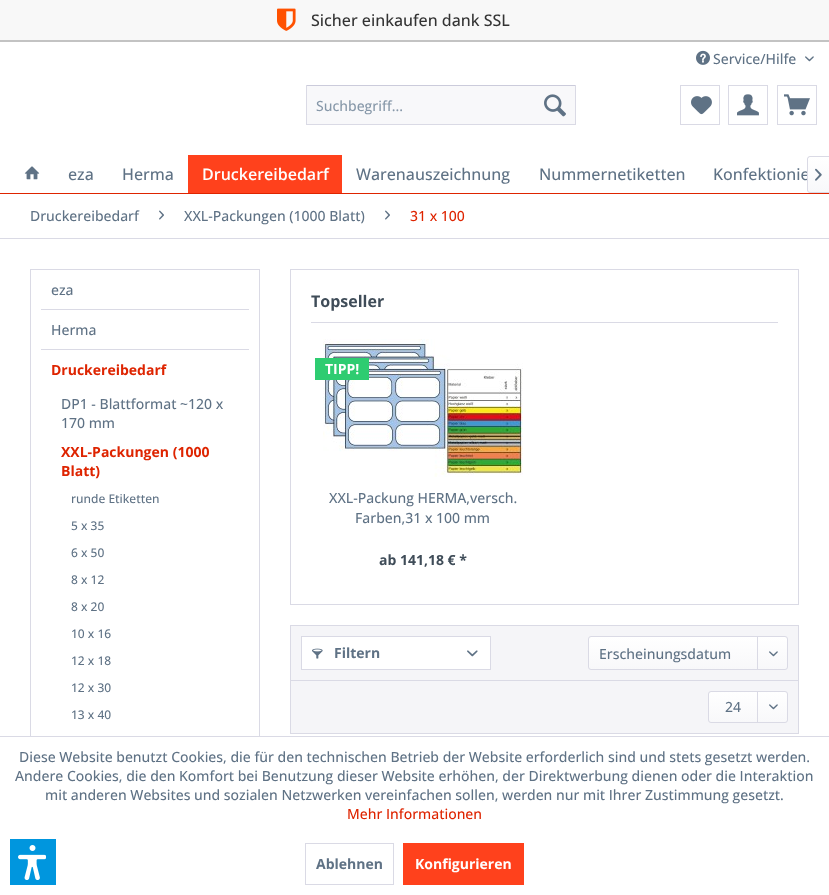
<svg xmlns="http://www.w3.org/2000/svg" width="829" height="895">
	<defs>
		<linearGradient id="g1" gradientUnits="userSpaceOnUse" x1="819" y1="157" x2="819" y2="192"><stop offset="0" stop-color="#FFFFFF" /><stop offset="1" stop-color="#F8F8FA" /></linearGradient>
		<linearGradient id="g2" gradientUnits="userSpaceOnUse" x1="688" y1="637" x2="688" y2="669"><stop offset="0" stop-color="#FFFFFF" /><stop offset="1" stop-color="#F8F8FA" /></linearGradient>
		<linearGradient id="g3" gradientUnits="userSpaceOnUse" x1="748" y1="692" x2="748" y2="722"><stop offset="0" stop-color="#FFFFFF" /><stop offset="1" stop-color="#F8F8FA" /></linearGradient>
	</defs>
	<rect width="100%" height="100%" fill="#FFFFFF" />
	<rect x="0" y="0" width="829" height="40" fill="#F8F8F8" />
	<rect x="0" y="40" width="829" height="2" fill="#C3C3C3" />
	<image x="277" y="8" width="19" height="23" href="assets/img1.png" />
	<text x="311" y="26" font-family="Open Sans" font-size="16" font-weight="500" fill="#333333">Sicher einkaufen dank SSL</text>
	<image x="696" y="50" width="14" height="15" href="assets/img2.png" />
	<text x="713" y="64" font-family="Open Sans" font-size="14" font-weight="500" fill="#5F7285">Service/Hilfe</text>
	<image x="805" y="56" width="9" height="6" href="assets/img3.png" />
	<rect x="307" y="86" width="268" height="38" fill="#F8F8FA" />
	<rect x="306" y="85" width="270" height="1" fill="#CBCBDB" />
	<rect x="575" y="85" width="1" height="40" fill="#DADAE5" />
	<rect x="306" y="124" width="270" height="1" fill="#DADAE5" />
	<rect x="306" y="85" width="1" height="40" fill="#DADAE5" />
	<text x="316" y="111" font-family="Open Sans" font-size="14" font-weight="500" fill="#8798A9">Suchbegriff...</text>
	<image x="544" y="94" width="22" height="23" href="assets/img4.png" />
	<rect x="680.5" y="85.5" width="39" height="39" fill="none" stroke="#DADAE5" />
	<image x="691" y="96" width="21" height="19" href="assets/img5.png" />
	<rect x="728.5" y="85.5" width="39" height="39" fill="none" stroke="#DADAE5" />
	<image x="737" y="94" width="22" height="22" href="assets/img6.png" />
	<rect x="777.5" y="85.5" width="39" height="39" fill="none" stroke="#DADAE5" />
	<image x="784" y="94" width="26" height="22" href="assets/img7.png" />
	<rect x="0" y="193" width="829" height="1" fill="#DE2400" />
	<image x="24" y="166" width="16" height="14" href="assets/img8.png" />
	<g font-family="Open Sans" font-size="16" font-weight="500" fill="#5F7285">
		<text x="68" y="180">eza</text>
		<text x="122" y="180">Herma</text>
	</g>
	<rect x="188" y="155" width="154" height="38" fill="#FF411C" />
	<text x="202" y="180" font-family="Open Sans" font-size="16" font-weight="600" fill="#FFFFFF">Druckereibedarf</text>
	<g font-family="Open Sans" font-size="16" font-weight="500" fill="#5F7285">
		<text x="356" y="180">Warenauszeichnung</text>
		<text x="539" y="180">Nummernetiketten</text>
		<text x="713" y="180">Konfektionie</text>
	</g>
	<path d="M810 157H829V192H810C809 192 808 191 808 190V159C808 158 809 157 810 157Z" fill="url(#g1)" />
	<path d="M810 156H829V193H810C808.5 193 807 191.5 807 190V159C807 157.5 808.5 156 810 156ZM810 157H829V192H810C809 192 808 191 808 190V159C808 158 809 157 810 157Z" fill="#DADAE5" fill-rule="evenodd" />
	<image x="815" y="168" width="7" height="13" href="assets/img9.png" />
	<rect x="0" y="238" width="829" height="1" fill="#DADAE5" />
	<text x="30" y="221" font-family="Open Sans" font-size="14" font-weight="500" fill="#5F7285">Druckereibedarf</text>
	<image x="159" y="210" width="5" height="10" href="assets/img10.png" />
	<text x="184" y="221" font-family="Open Sans" font-size="14" font-weight="500" fill="#5F7285">XXL-Packungen (1000 Blatt)</text>
	<image x="385" y="210" width="5" height="10" href="assets/img10.png" />
	<text x="410" y="221" font-family="Open Sans" font-size="14" font-weight="500" fill="#DE2400">31 x 100</text>
	<rect x="30.5" y="269.5" width="229" height="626" fill="none" stroke="#DADAE5" />
	<rect x="41" y="309" width="208" height="1" fill="#DADAE5" />
	<text x="51" y="295" font-family="Open Sans" font-size="14" font-weight="500" fill="#5F7285">eza</text>
	<rect x="41" y="349" width="208" height="1" fill="#DADAE5" />
	<text x="51" y="335" font-family="Open Sans" font-size="14" font-weight="500" fill="#5F7285">Herma</text>
	<text x="51" y="375" font-family="Open Sans" font-size="14" font-weight="700" fill="#DE2400">Druckereibedarf</text>
	<g font-family="Open Sans" font-size="14" font-weight="500" fill="#5F7285">
		<text x="61" y="409">DP1 - Blattformat ~120 x</text>
		<text x="61" y="428">170 mm</text>
	</g>
	<g font-family="Open Sans" font-size="14" font-weight="700" fill="#DE2400">
		<text x="61" y="457">XXL-Packungen (1000</text>
		<text x="61" y="476">Blatt)</text>
	</g>
	<g font-family="Open Sans" font-size="12" font-weight="500" fill="#5F7285">
		<text x="71" y="503">runde Etiketten</text>
		<text x="71" y="530">5 x 35</text>
		<text x="71" y="557">6 x 50</text>
		<text x="71" y="584">8 x 12</text>
		<text x="71" y="611">8 x 20</text>
		<text x="71" y="638">10 x 16</text>
		<text x="71" y="665">12 x 18</text>
		<text x="71" y="692">12 x 30</text>
		<text x="71" y="719">13 x 40</text>
	</g>
	<rect x="290.5" y="269.5" width="508" height="335" fill="none" stroke="#DADAE5" />
	<rect x="311" y="322" width="467" height="1" fill="#DADAE5" />
	<text x="311" y="307" font-family="Open Sans" font-size="16" font-weight="700" fill="#3F4C58">Topseller</text>
	<image x="323" y="339" width="200" height="138" href="assets/img11.png" />
	<rect x="315" y="358" width="54" height="22" fill="#2ECC71" />
	<text x="325" y="374" font-family="Open Sans" font-size="14" font-weight="700" fill="#FFFFFF">TIPP!</text>
	<g font-family="Open Sans" font-size="14" font-weight="500" fill="#5F7285">
		<text x="329" y="503">XXL-Packung HERMA,versch.</text>
		<text x="355" y="523">Farben,31 x 100 mm</text>
	</g>
	<text x="379" y="565" font-family="Open Sans" font-size="14" font-weight="700" fill="#3F4C58">ab 141,18 € *</text>
	<rect x="290.5" y="625.5" width="508" height="108" fill="#F5F5F8" stroke="#DADAE5" />
	<rect x="301.5" y="636.5" width="189" height="33" fill="#FFFFFF" stroke="#DADAE5" />
	<image x="312" y="648" width="11" height="11" href="assets/img12.png" />
	<text x="334" y="658" font-family="Open Sans" font-size="14" font-weight="700" fill="#5F7285">Filtern</text>
	<image x="467" y="650" width="11" height="7" href="assets/img13.png" />
	<rect x="589" y="637" width="198" height="32" rx="2" fill="url(#g2)" />
	<rect x="588.5" y="636.5" width="199" height="33" rx="2.5" fill="none" stroke="#DADAE5" />
	<text x="599" y="659" font-family="Open Sans" font-size="14" font-weight="500" fill="#5F7285">Erscheinungsdatum</text>
	<rect x="757" y="637" width="1" height="33" fill="#DADAE5" />
	<image x="769" y="651" width="9" height="6" href="assets/img14.png" />
	<rect x="291" y="680" width="507" height="1" fill="#DADAE5" />
	<rect x="709" y="692" width="78" height="30" rx="2" fill="url(#g3)" />
	<rect x="708.5" y="691.5" width="79" height="31" rx="2.5" fill="none" stroke="#DADAE5" />
	<text x="725" y="712" font-family="Open Sans" font-size="14" font-weight="500" fill="#5F7285">24</text>
	<rect x="757" y="692" width="1" height="31" fill="#DADAE5" />
	<image x="769" y="704" width="9" height="6" href="assets/img15.png" />
	<rect x="30" y="737" width="230" height="158" fill="#FFFFFF" />
	<rect x="0" y="736" width="829" height="1" fill="#DADAE5" />
	<g font-family="Open Sans" font-size="14" font-weight="500" fill="#5F7285">
		<text x="19" y="762">Diese Website benutzt Cookies, die für den technischen Betrieb der Website erforderlich sind und stets gesetzt werden.</text>
		<text x="15" y="781">Andere Cookies, die den Komfort bei Benutzung dieser Website erhöhen, der Direktwerbung dienen oder die Interaktion</text>
		<text x="45" y="800">mit anderen Websites und sozialen Netzwerken vereinfachen sollen, werden nur mit Ihrer Zustimmung gesetzt.</text>
	</g>
	<text x="347" y="819" font-family="Open Sans" font-size="14" font-weight="500" fill="#DE2400">Mehr Informationen</text>
	<rect x="305.5" y="843.5" width="88" height="41" fill="none" stroke="#DADAE5" />
	<text x="316" y="869" font-family="Open Sans" font-size="14" font-weight="700" fill="#5F7285">Ablehnen</text>
	<rect x="403" y="843" width="121" height="42" fill="#FF411C" />
	<text x="415" y="869" font-family="Open Sans" font-size="14" font-weight="700" fill="#FFFFFF">Konfigurieren</text>
	<rect x="10" y="839" width="46" height="46" fill="#0096DE" />
	<image x="18" y="845" width="28" height="35" href="assets/img16.png" />
</svg>
